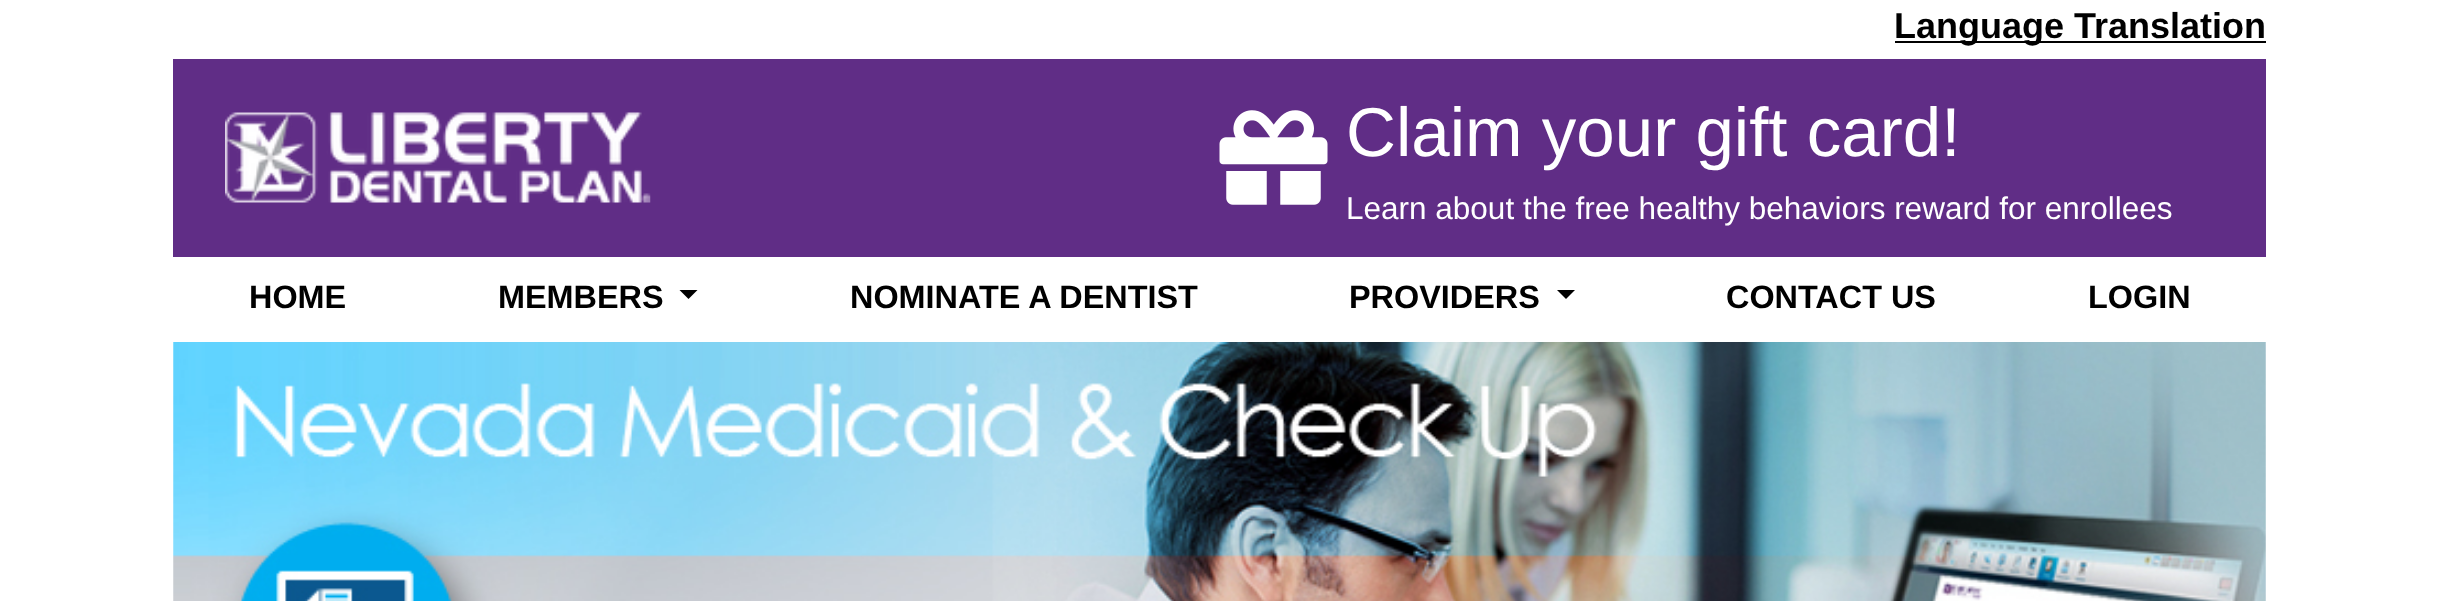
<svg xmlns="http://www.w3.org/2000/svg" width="2437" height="601">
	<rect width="100%" height="100%" fill="#FFFFFF" />
	<rect x="1895" y="41" width="371" height="2" fill="#000000" />
	<text x="1894" y="38" font-family="Liberation Sans" font-size="36" font-weight="700" fill="#000000">Language Translation</text>
	<rect x="173" y="59" width="2093" height="198" fill="#602D86" />
	<image x="225" y="112" width="426" height="91" href="assets/img1.png" />
	<image x="1219" y="110" width="109" height="95" href="assets/img2.png" />
	<text x="1346" y="156" font-family="Liberation Sans" font-size="69.1" fill="#FFFFFF">Claim your gift card!</text>
	<text x="1346" y="219" font-family="Liberation Sans" font-size="31.5" fill="#FFFFFF">Learn about the free healthy behaviors reward for enrollees</text>
	<g font-family="Liberation Sans" font-size="32.4" font-weight="700" fill="#000000">
		<text x="249" y="308">HOME</text>
		<text x="498" y="308">MEMBERS</text>
	</g>
	<path d="M679.5 290H697.5L688.5 299Z" fill="#000000" />
	<g font-family="Liberation Sans" font-size="32.4" font-weight="700" fill="#000000">
		<text x="850" y="308">NOMINATE A DENTIST</text>
		<text x="1349" y="308">PROVIDERS</text>
	</g>
	<path d="M1557 290H1575L1566 299Z" fill="#000000" />
	<g font-family="Liberation Sans" font-size="32.4" font-weight="700" fill="#000000">
		<text x="1726" y="308">CONTACT US</text>
		<text x="2088" y="308">LOGIN</text>
	</g>
	<image x="173" y="342" width="2093" height="259" href="assets/img3.png" />
</svg>
